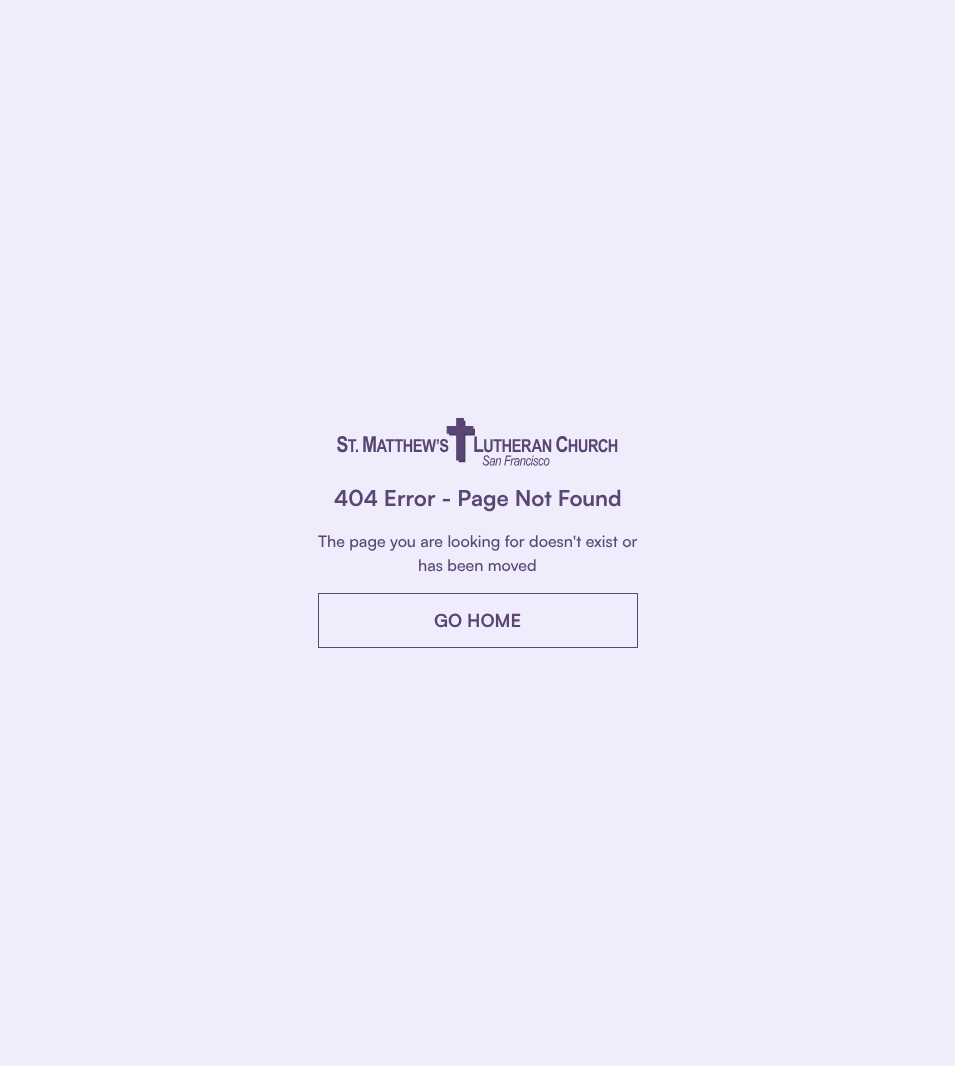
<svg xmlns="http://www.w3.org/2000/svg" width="955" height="1066">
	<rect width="100%" height="100%" fill="#EFECFC" />
	<image x="337" y="418" width="281" height="48" href="assets/img1.png" />
	<text x="334" y="506" font-family="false" font-size="22" font-weight="700" fill="#594673">404 Error - Page Not Found</text>
	<g font-family="Satoshi" font-size="16" font-weight="500" fill="#594673">
		<text x="318" y="547">The page you are looking for doesn't exist or</text>
		<text x="418" y="571">has been moved</text>
	</g>
	<rect x="318.5" y="593.5" width="319" height="54" fill="none" stroke="#594673" />
	<text x="434" y="627" font-family="false" font-size="18" font-weight="700" fill="#594673">GO HOME</text>
</svg>
